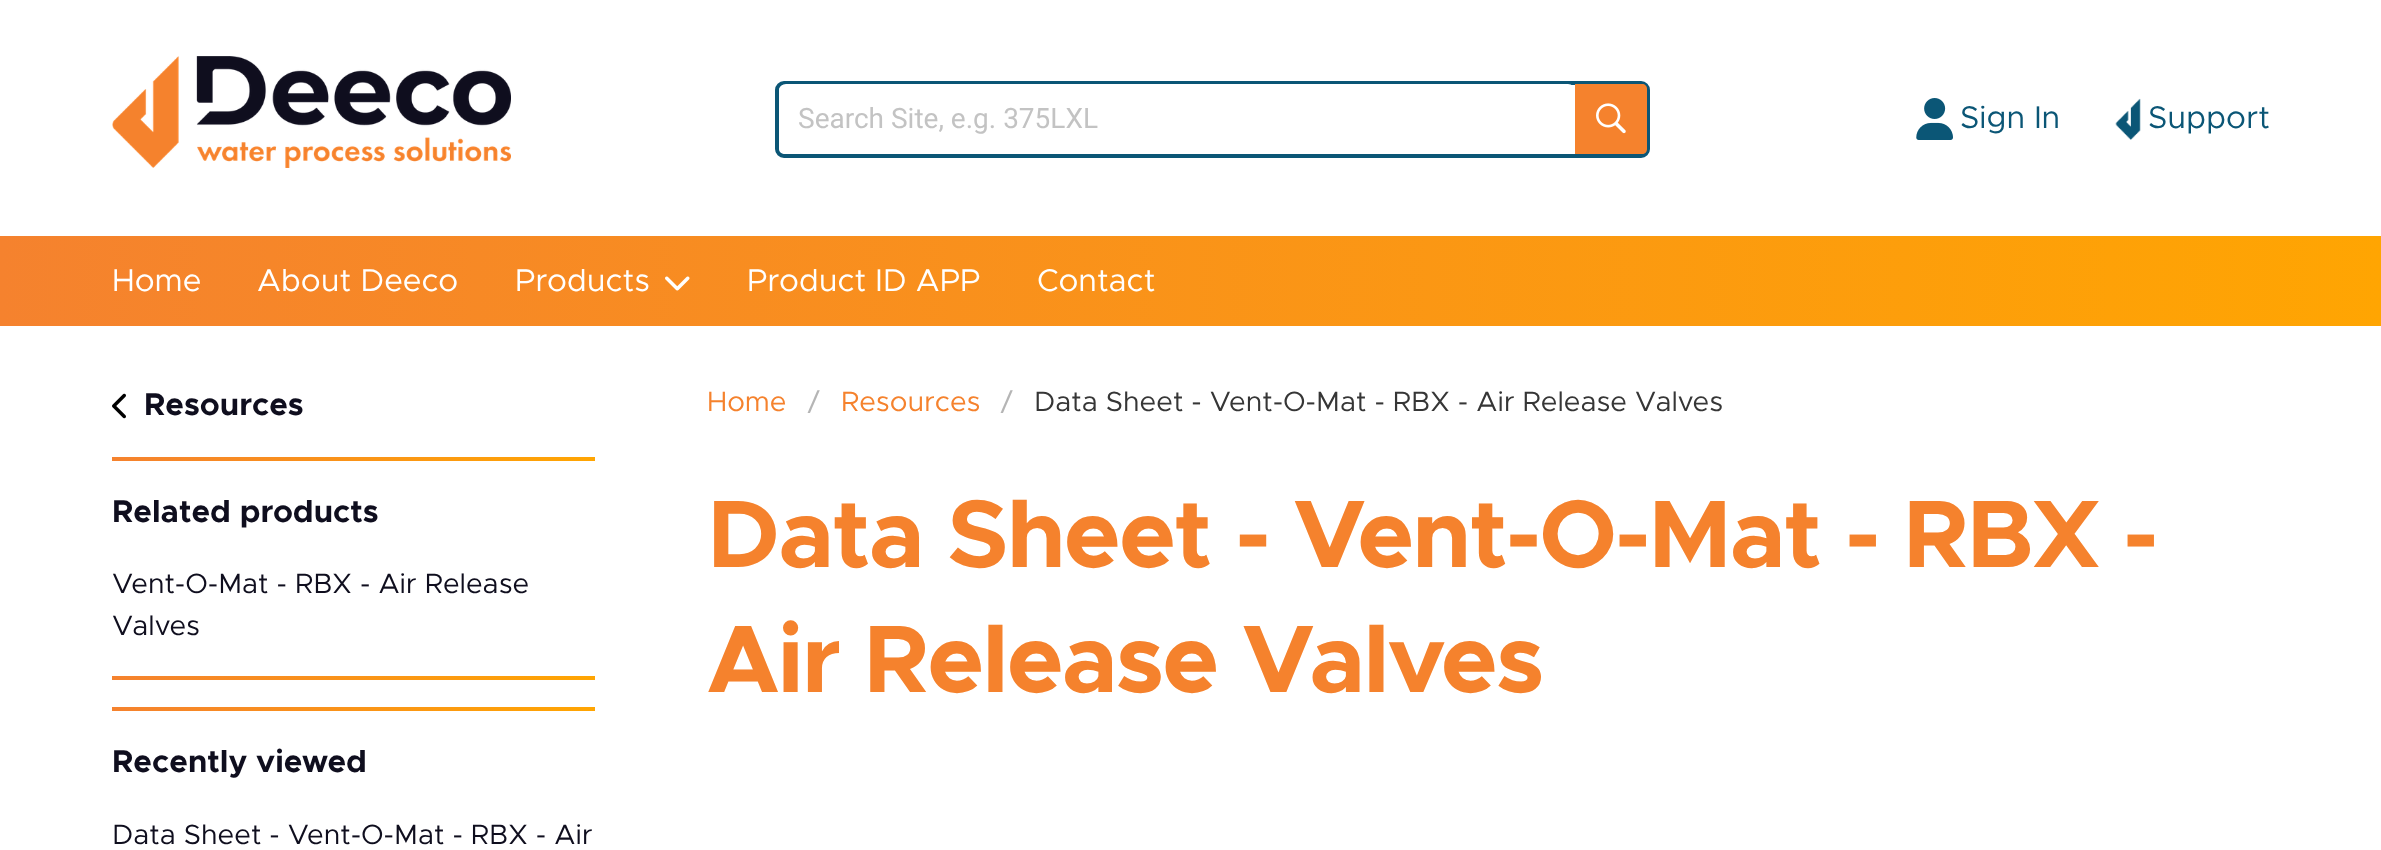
<svg xmlns="http://www.w3.org/2000/svg" width="2381" height="850">
	<defs>
		<linearGradient id="g1" gradientUnits="userSpaceOnUse" x1="0" y1="281" x2="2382" y2="281"><stop offset="0" stop-color="#F5822E" /><stop offset="1" stop-color="#FFA502" /></linearGradient>
		<linearGradient id="g2" gradientUnits="userSpaceOnUse" x1="112" y1="459" x2="595" y2="459"><stop offset="0" stop-color="#F5822E" /><stop offset="1" stop-color="#FFA502" /></linearGradient>
		<linearGradient id="g3" gradientUnits="userSpaceOnUse" x1="112" y1="677" x2="595" y2="677"><stop offset="0" stop-color="#F5822E" /><stop offset="1" stop-color="#FFA502" /></linearGradient>
		<linearGradient id="g4" gradientUnits="userSpaceOnUse" x1="112" y1="709" x2="595" y2="709"><stop offset="0" stop-color="#F5822E" /><stop offset="1" stop-color="#FFA502" /></linearGradient>
	</defs>
	<rect width="100%" height="100%" fill="#FFFFFF" />
	<image x="112" y="56" width="399" height="112" href="assets/img1.png" />
	<rect x="777" y="83" width="871" height="73" rx="7" fill="none" stroke="#0B5676" stroke-width="4" />
	<rect x="779" y="84" width="796" height="70" rx="7" fill="#FFFFFF" />
	<text x="798" y="128" font-family="Roboto" font-size="28" fill="#C3C3C3">Search Site, e.g. 375LXL</text>
	<path d="M1575 84H1642C1645 84 1647 86 1647 89V149C1647 152 1645 154 1642 154H1575Z" fill="#F5822D" />
	<image x="1596" y="103" width="30" height="31" href="assets/img2.png" />
	<image x="1916" y="98" width="37" height="42" href="assets/img3.png" />
	<text x="1960" y="128" font-family="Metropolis" font-size="31.5" fill="#0B5676">Sign In</text>
	<image x="2115" y="98" width="26" height="42" href="assets/img4.png" />
	<text x="2148" y="128" font-family="Metropolis" font-size="31.5" fill="#0B5676">Support</text>
	<rect x="0" y="236" width="2381" height="90" fill="url(#g1)" />
	<g font-family="Metropolis" font-size="31.5" fill="#FFFFFF">
		<text x="112" y="291">Home</text>
		<text x="257" y="291">About Deeco</text>
		<text x="515" y="291">Products</text>
	</g>
	<image x="665" y="276" width="25" height="15" href="assets/img5.png" />
	<g font-family="Metropolis" font-size="31.5" fill="#FFFFFF">
		<text x="747" y="291">Product ID APP</text>
		<text x="1037" y="291">Contact</text>
	</g>
	<image x="112" y="393" width="14" height="26" href="assets/img6.png" />
	<text x="144" y="415" font-family="Metropolis" font-size="31.5" font-weight="700" fill="#0F0E1E">Resources</text>
	<rect x="112" y="457" width="483" height="4" fill="url(#g2)" />
	<text x="112" y="522" font-family="Metropolis" font-size="31.5" font-weight="700" fill="#0F0E1E">Related products</text>
	<g font-family="Metropolis" font-size="28" fill="#0F0E1E">
		<text x="112" y="593">Vent-O-Mat - RBX - Air Release</text>
		<text x="112" y="635">Valves</text>
	</g>
	<rect x="112" y="676" width="483" height="4" fill="url(#g3)" />
	<rect x="112" y="707" width="483" height="4" fill="url(#g4)" />
	<text x="112" y="772" font-family="Metropolis" font-size="31.5" font-weight="700" fill="#0F0E1E">Recently viewed</text>
	<text x="112" y="844" font-family="Metropolis" font-size="28" fill="#0F0E1E">Data Sheet - Vent-O-Mat - RBX - Air</text>
	<text x="707" y="411" font-family="Metropolis" font-size="28" fill="#F5822D">Home</text>
	<text x="808" y="411" font-family="Metropolis" font-size="28" fill="#B5B5B5">/</text>
	<text x="841" y="411" font-family="Metropolis" font-size="28" fill="#F5822D">Resources</text>
	<text x="1001" y="411" font-family="Metropolis" font-size="28" fill="#B5B5B5">/</text>
	<text x="1034" y="411" font-family="Metropolis" font-size="28" fill="#363636">Data Sheet - Vent-O-Mat - RBX - Air Release Valves</text>
	<g font-family="Metropolis" font-size="96.25" font-weight="700" letter-spacing="-1.9" fill="#F5822D">
		<text x="707" y="567">Data Sheet - Vent-O-Mat - RBX -</text>
		<text x="707" y="692">Air Release Valves</text>
	</g>
</svg>
